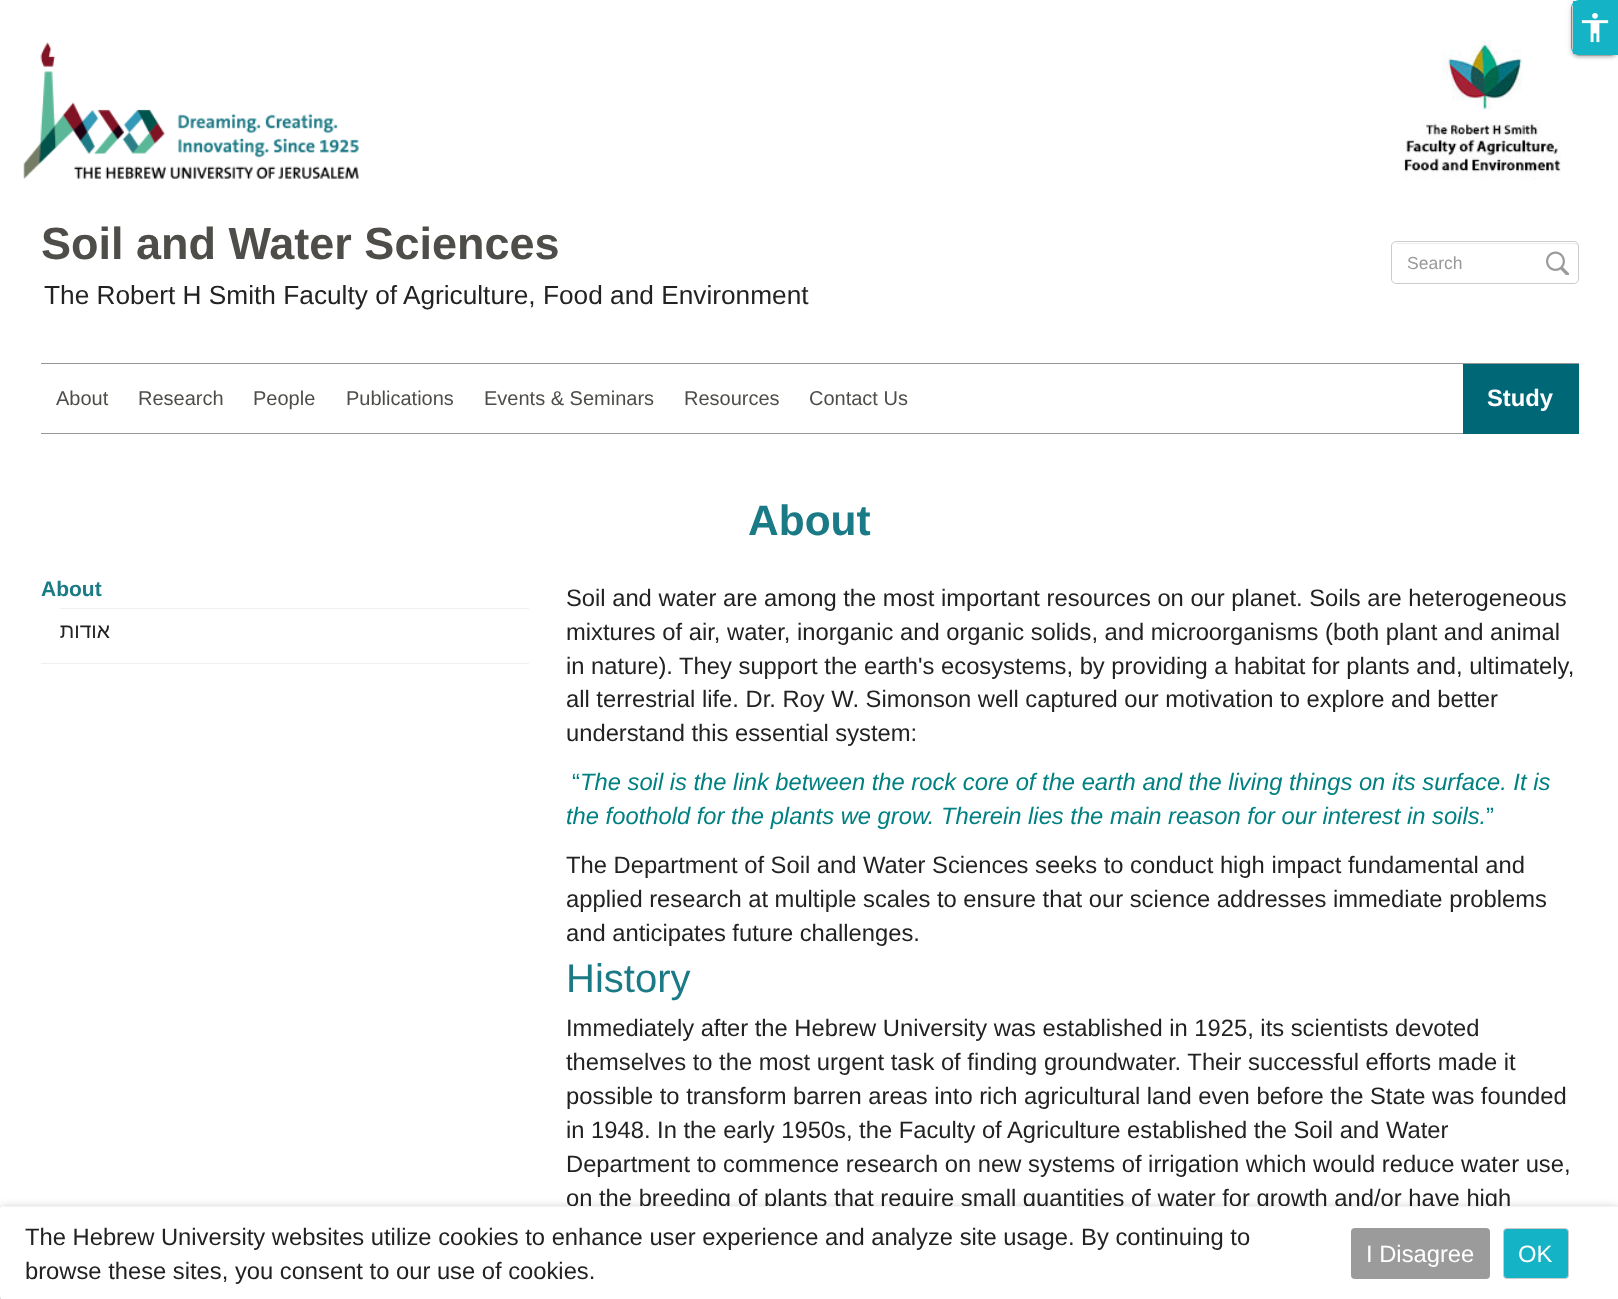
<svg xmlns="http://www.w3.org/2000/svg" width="1618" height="1299">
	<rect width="100%" height="100%" fill="#FFFFFF" />
	<rect x="1574" y="6" width="42" height="50" rx="5" fill="#000000" fill-opacity="0.2" filter="blur(0.5px)" />
	<rect x="1571" y="1" width="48" height="55" rx="8" fill="#000000" fill-opacity="0.12" filter="blur(3px)" />
	<rect x="1571" y="3" width="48" height="55" rx="8" fill="#000000" fill-opacity="0.14" filter="blur(1px)" />
	<path d="M1579 .5H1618.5V54.5H1579C1575 54.5 1571.5 51 1571.5 47V8C1571.5 4 1575 .5 1579 .5Z" fill="none" stroke="#14B3C6" />
	<rect x="1573" y="1" width="45" height="53" fill="#14B3C6" />
	<image x="1581" y="13" width="28" height="30" href="assets/img1.png" />
	<image x="23" y="42" width="336" height="137" href="assets/img2.png" />
	<text x="41" y="259" font-family="Liberation Sans" font-size="45" font-weight="700" fill="#4F4D49">Soil and Water Sciences</text>
	<text x="44" y="304" font-family="Liberation Sans" font-size="26.25" fill="#222222">The Robert H Smith Faculty of Agriculture, Food and Environment</text>
	<image x="1401" y="40" width="160" height="139" href="assets/img3.png" />
	<path d="M1396 244H1574C1576 244 1578 245 1578 248C1578 245 1577 243 1574 243H1397L1394 244Z" fill="#ECECEC" />
	<rect x="1391.5" y="241.5" width="187" height="42" rx="4.5" fill="none" stroke="#CCCCCC" />
	<text x="1407" y="269" font-family="Liberation Sans" font-size="17.5" fill="#999999">Search</text>
	<image x="1546" y="251" width="23" height="24" href="assets/img4.png" />
	<rect x="41" y="363" width="1538" height="1" fill="#979797" />
	<rect x="41" y="433" width="1422" height="1" fill="#979797" />
	<g font-family="Liberation Sans" font-size="20" fill="#4F4D49">
		<text x="56" y="405">About</text>
		<text x="138" y="405">Research</text>
		<text x="253" y="405">People</text>
		<text x="346" y="405">Publications</text>
		<text x="484" y="405">Events &amp; Seminars</text>
		<text x="684" y="405">Resources</text>
		<text x="809" y="405">Contact Us</text>
	</g>
	<rect x="1463" y="364" width="116" height="70" fill="#006777" />
	<text x="1487" y="406" font-family="Liberation Sans" font-size="23.75" font-weight="700" fill="#FFFFFF">Study</text>
	<text x="748" y="535" font-family="Liberation Sans" font-size="42.5" font-weight="700" fill="#1A7A86">About</text>
	<rect x="41" y="663" width="488" height="1" fill="#F0F0F0" />
	<text x="41" y="596" font-family="Liberation Sans" font-size="21" font-weight="700" fill="#1A7A86">About</text>
	<rect x="60" y="608" width="469" height="1" fill="#F0F0F0" />
	<text x="110" y="638" font-family="Liberation Sans" font-size="21" direction="rtl" fill="#222222">אודות</text>
	<g font-family="Liberation Sans" font-size="23.75" fill="#222222">
		<text x="566" y="606">Soil and water are among the most important resources on our planet. Soils are heterogeneous</text>
		<text x="566" y="640">mixtures of air, water, inorganic and organic solids, and microorganisms (both plant and animal</text>
		<text x="566" y="674">in nature). They support the earth's ecosystems, by providing a habitat for plants and, ultimately,</text>
		<text x="566" y="707">all terrestrial life. Dr. Roy W. Simonson well captured our motivation to explore and better</text>
		<text x="566" y="741">understand this essential system:</text>
	</g>
	<text x="572" y="790" font-family="Liberation Sans" font-size="23.75" fill="#008080">“</text>
	<g font-family="Liberation Sans" font-size="23.75" font-style="italic" fill="#008080">
		<text x="580" y="790">The soil is the link between the rock core of the earth and the living things on its surface. It is</text>
		<text x="566" y="824">the foothold for the plants we grow. Therein lies the main reason for our interest in soils.</text>
	</g>
	<text x="1486" y="824" font-family="Liberation Sans" font-size="23.75" fill="#008080">”</text>
	<g font-family="Liberation Sans" font-size="23.75" fill="#222222">
		<text x="566" y="873">The Department of Soil and Water Sciences seeks to conduct high impact fundamental and</text>
		<text x="566" y="907">applied research at multiple scales to ensure that our science addresses immediate problems</text>
		<text x="566" y="941">and anticipates future challenges.</text>
	</g>
	<text x="566" y="992" font-family="Liberation Sans" font-size="40" fill="#1A7A86">History</text>
	<g font-family="Liberation Sans" font-size="23.75" fill="#222222">
		<text x="566" y="1036">Immediately after the Hebrew University was established in 1925, its scientists devoted</text>
		<text x="566" y="1070">themselves to the most urgent task of finding groundwater. Their successful efforts made it</text>
		<text x="566" y="1104">possible to transform barren areas into rich agricultural land even before the State was founded</text>
		<text x="566" y="1138">in 1948. In the early 1950s, the Faculty of Agriculture established the Soil and Water</text>
		<text x="566" y="1172">Department to commence research on new systems of irrigation which would reduce water use,</text>
		<text x="566" y="1206">on the breeding of plants that require small quantities of water for growth and/or have high</text>
	</g>
	<rect x="0" y="1211" width="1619" height="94" rx="4" fill="#000000" fill-opacity="0.48" filter="blur(6px)" />
	<rect x="0" y="1206" width="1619" height="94" rx="4" fill="#FFFFFF" />
	<rect x="3" y="1206" width="1615" height="1" fill="#F6F4F1" />
	<g font-family="Liberation Sans" font-size="23.75" fill="#222222">
		<text x="25" y="1245">The Hebrew University websites utilize cookies to enhance user experience and analyze site usage. By continuing to</text>
		<text x="25" y="1279">browse these sites, you consent to our use of cookies.</text>
	</g>
	<rect x="1351" y="1228" width="139" height="51" rx="4" fill="#9B9B9B" />
	<text x="1366" y="1262" font-family="Liberation Sans" font-size="23.75" fill="#FFFFFF">I Disagree</text>
	<rect x="1503.5" y="1228.5" width="65" height="50" rx="3.5" fill="#14B3C6" stroke="#CCCCCC" />
	<text x="1518" y="1262" font-family="Liberation Sans" font-size="23.75" fill="#FFFFFF">OK</text>
</svg>
